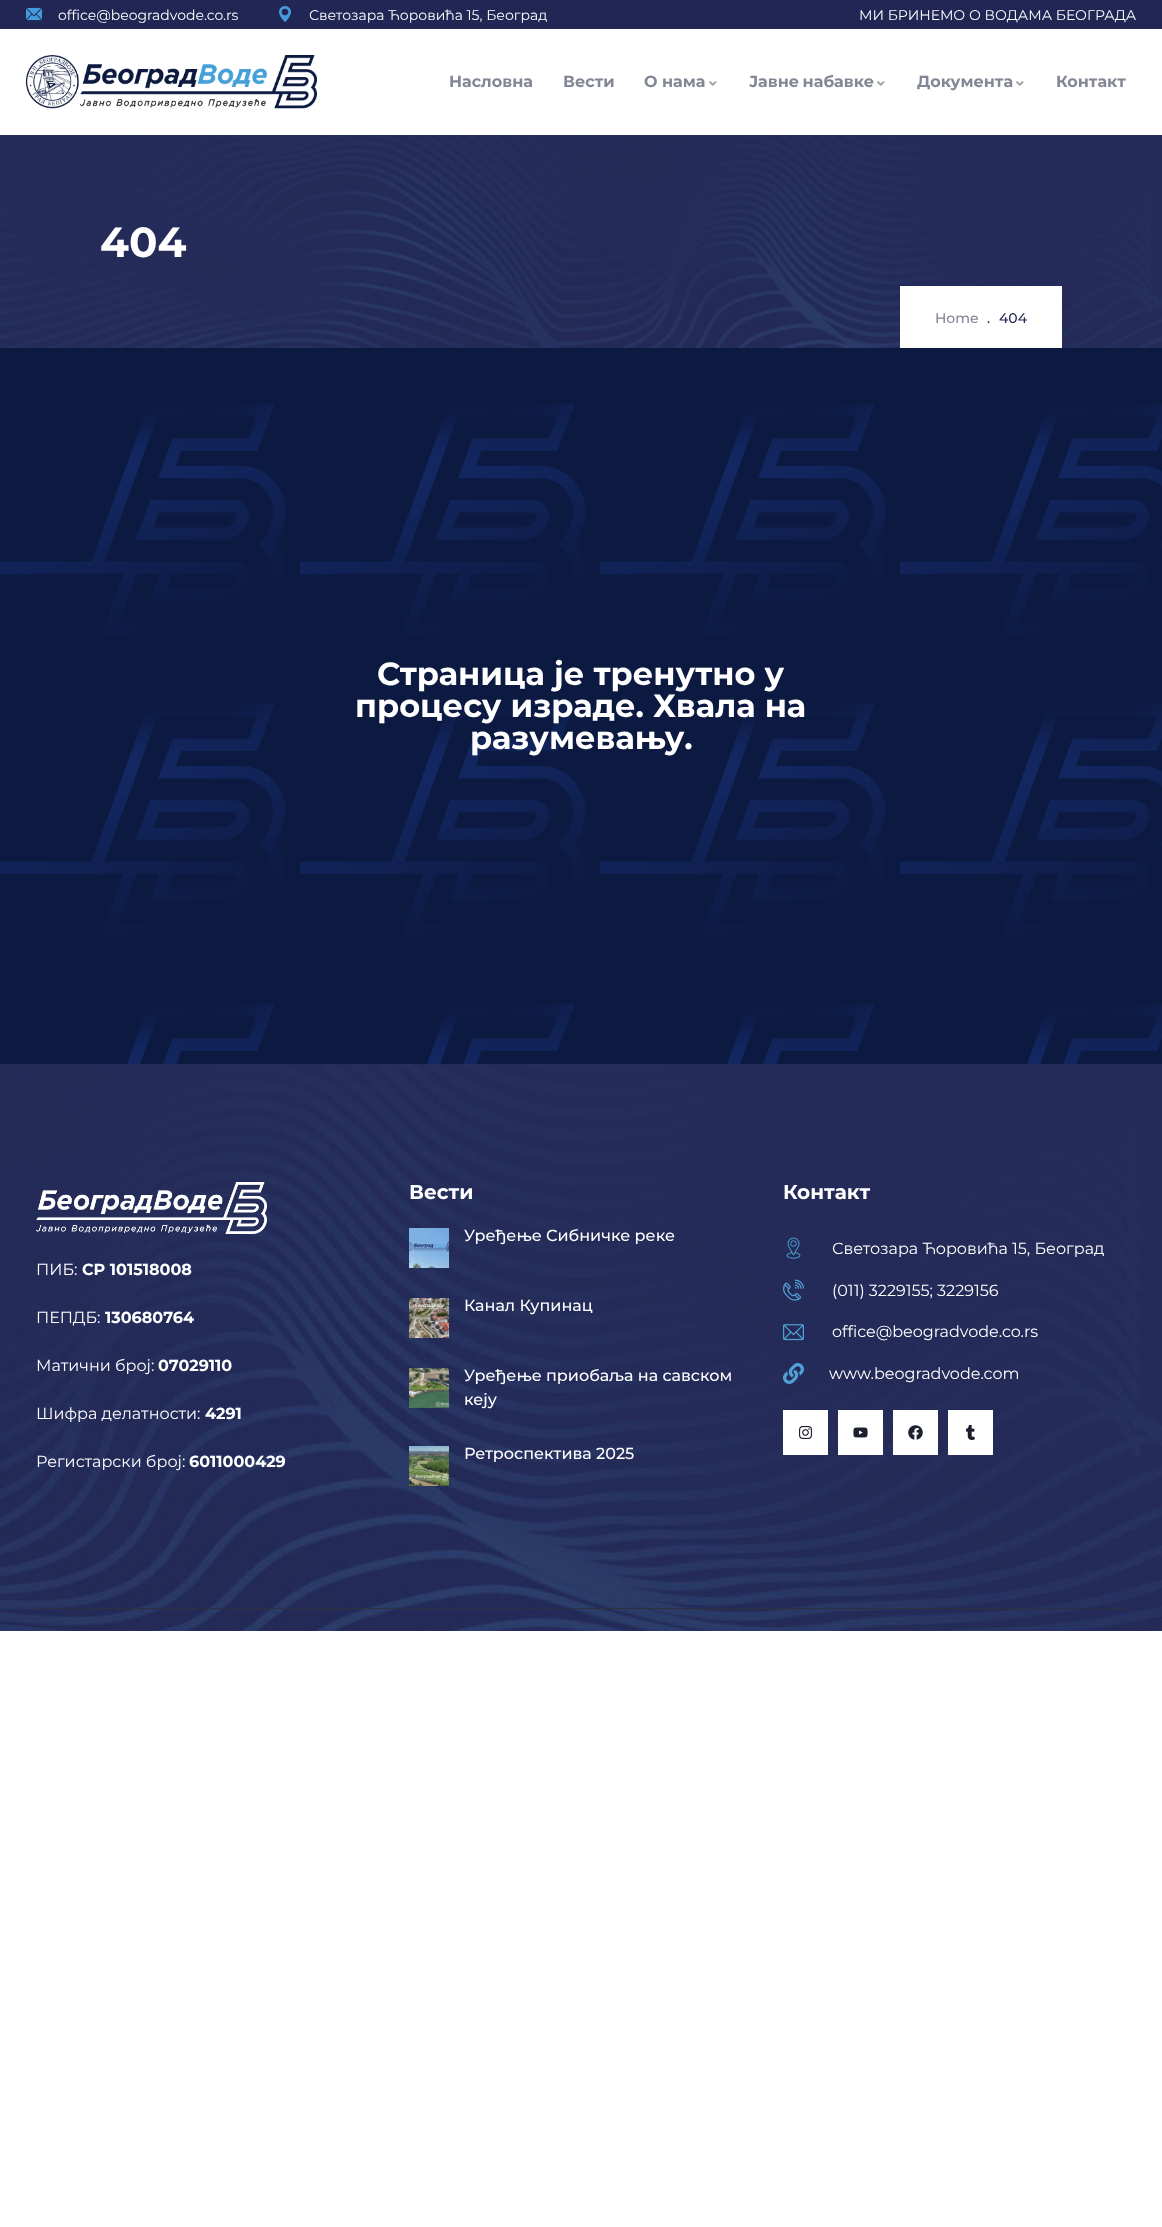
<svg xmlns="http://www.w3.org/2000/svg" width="1162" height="2227">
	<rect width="100%" height="100%" fill="#FFFFFF" />
	<rect x="0" y="0" width="1162" height="29" fill="#212655" />
	<image x="26" y="7" width="16" height="14" href="assets/img1.png" />
	<text x="58" y="20" font-family="Montserrat" font-size="14" fill="#FFFFFF">office@beogradvode.co.rs</text>
	<image x="279" y="6" width="12" height="16" href="assets/img2.png" />
	<g font-family="Montserrat" font-size="14" fill="#FFFFFF">
		<text x="309" y="20">Светозара Ћоровића 15, Београд</text>
		<text x="859" y="20">МИ БРИНЕМО О ВОДАМА БЕОГРАДА</text>
	</g>
	<image x="26" y="55" width="291" height="54" href="assets/img3.png" />
	<g font-family="Montserrat" font-size="16" font-weight="700" fill="#838694">
		<text x="449" y="87">Насловна</text>
		<text x="563" y="87">Вести</text>
		<text x="644" y="87">О нама</text>
	</g>
	<image x="709" y="81" width="8" height="5" href="assets/img4.png" />
	<text x="749" y="87" word-spacing="-1" font-family="Montserrat" font-size="16" font-weight="700" fill="#838694">Јавне набавке</text>
	<image x="877" y="81" width="8" height="5" href="assets/img4.png" />
	<text x="917" y="87" font-family="Montserrat" font-size="16" font-weight="700" fill="#838694">Документа</text>
	<image x="1016" y="81" width="8" height="5" href="assets/img4.png" />
	<text x="1056" y="87" font-family="Montserrat" font-size="16" font-weight="700" fill="#838694">Контакт</text>
	<image x="0" y="135" width="1162" height="213" href="assets/img5.png" />
	<text x="100" y="257" font-family="Montserrat" font-size="42" font-weight="700" fill="#FFFFFF">404</text>
	<rect x="900" y="286" width="162" height="62" fill="#FFFFFF" />
	<text x="935" y="323" font-family="Montserrat" font-size="14" font-weight="500" fill="#838694">Home</text>
	<g font-family="Montserrat" font-size="14" font-weight="500" fill="#212655">
		<text x="987" y="323">.</text>
		<text x="999" y="323">404</text>
	</g>
	<image x="0" y="348" width="1162" height="716" href="assets/img6.png" />
	<g font-family="Montserrat" font-size="32" font-weight="700" fill="#FFFFFF">
		<text x="377" y="685">Страница је тренутно у</text>
		<text x="355" y="717">процесу израде. Хвала на</text>
		<text x="470" y="749">разумевању.</text>
	</g>
	<image x="0" y="1064" width="1162" height="567" href="assets/img7.png" />
	<image x="36" y="1182" width="231" height="52" href="assets/img8.png" />
	<text x="36" y="1275" font-family="Montserrat" font-size="16" fill="#FFFFFF">ПИБ:</text>
	<text x="82" y="1275" font-family="Montserrat" font-size="16" font-weight="700" fill="#FFFFFF">CP 101518008</text>
	<text x="36" y="1323" font-family="Montserrat" font-size="16" fill="#FFFFFF">ПЕПДБ:</text>
	<text x="105" y="1323" font-family="Montserrat" font-size="16" font-weight="700" fill="#FFFFFF">130680764</text>
	<text x="36" y="1371" font-family="Montserrat" font-size="16" fill="#FFFFFF">Матични број:</text>
	<text x="158" y="1371" font-family="Montserrat" font-size="16" font-weight="700" fill="#FFFFFF">07029110</text>
	<text x="36" y="1419" font-family="Montserrat" font-size="16" fill="#FFFFFF">Шифра делатности:</text>
	<text x="205" y="1419" font-family="Montserrat" font-size="16" font-weight="700" fill="#FFFFFF">4291</text>
	<text x="36" y="1467" font-family="Montserrat" font-size="16" fill="#FFFFFF">Регистарски број:</text>
	<text x="189" y="1467" font-family="Montserrat" font-size="16" font-weight="700" fill="#FFFFFF">6011000429</text>
	<text x="409" y="1199" font-family="Montserrat" font-size="20" font-weight="700" fill="#FFFFFF">Вести</text>
	<image x="409" y="1228" width="40" height="40" href="assets/img9.png" />
	<text x="464" y="1241" font-family="Montserrat" font-size="16" font-weight="500" fill="#FFFFFF">Уређење Сибничке реке</text>
	<image x="409" y="1298" width="40" height="40" href="assets/img10.png" />
	<text x="464" y="1311" font-family="Montserrat" font-size="16" font-weight="500" fill="#FFFFFF">Канал Купинац</text>
	<image x="409" y="1368" width="40" height="40" href="assets/img11.png" />
	<g font-family="Montserrat" font-size="16" font-weight="500" fill="#FFFFFF">
		<text x="464" y="1381">Уређење приобаља на савском</text>
		<text x="464" y="1405">кеју</text>
	</g>
	<image x="409" y="1446" width="40" height="40" href="assets/img12.png" />
	<text x="464" y="1459" font-family="Montserrat" font-size="16" font-weight="500" fill="#FFFFFF">Ретроспектива 2025</text>
	<text x="783" y="1199" font-family="Montserrat" font-size="20" font-weight="700" fill="#FFFFFF">Контакт</text>
	<image x="786" y="1237" width="15" height="22" href="assets/img13.png" />
	<text x="832" y="1254" font-family="Montserrat" font-size="16" fill="#FFFFFF">Светозара Ћоровића 15, Београд</text>
	<image x="783" y="1279" width="21" height="22" href="assets/img14.png" />
	<text x="832" y="1296" font-family="Montserrat" font-size="16" fill="#FFFFFF">(011) 3229155; 3229156</text>
	<image x="783" y="1324" width="21" height="17" href="assets/img15.png" />
	<text x="832" y="1337" font-family="Montserrat" font-size="16" fill="#FFFFFF">office@beogradvode.co.rs</text>
	<image x="783" y="1363" width="21" height="21" href="assets/img16.png" />
	<text x="829" y="1379" font-family="Montserrat" font-size="16" fill="#FFFFFF">www.beogradvode.com</text>
	<rect x="783" y="1410" width="45" height="45" fill="#FFFFFF" />
	<image x="799" y="1426" width="14" height="13" href="assets/img17.png" />
	<rect x="838" y="1410" width="45" height="45" fill="#FFFFFF" />
	<image x="853" y="1427" width="15" height="11" href="assets/img18.png" />
	<rect x="893" y="1410" width="45" height="45" fill="#FFFFFF" />
	<image x="908" y="1425" width="15" height="15" href="assets/img19.png" />
	<rect x="948" y="1410" width="45" height="45" fill="#FFFFFF" />
	<image x="966" y="1425" width="9" height="15" href="assets/img20.png" />
	<rect x="36" y="1608" width="1090" height="1" fill="#2D313E" />
</svg>
